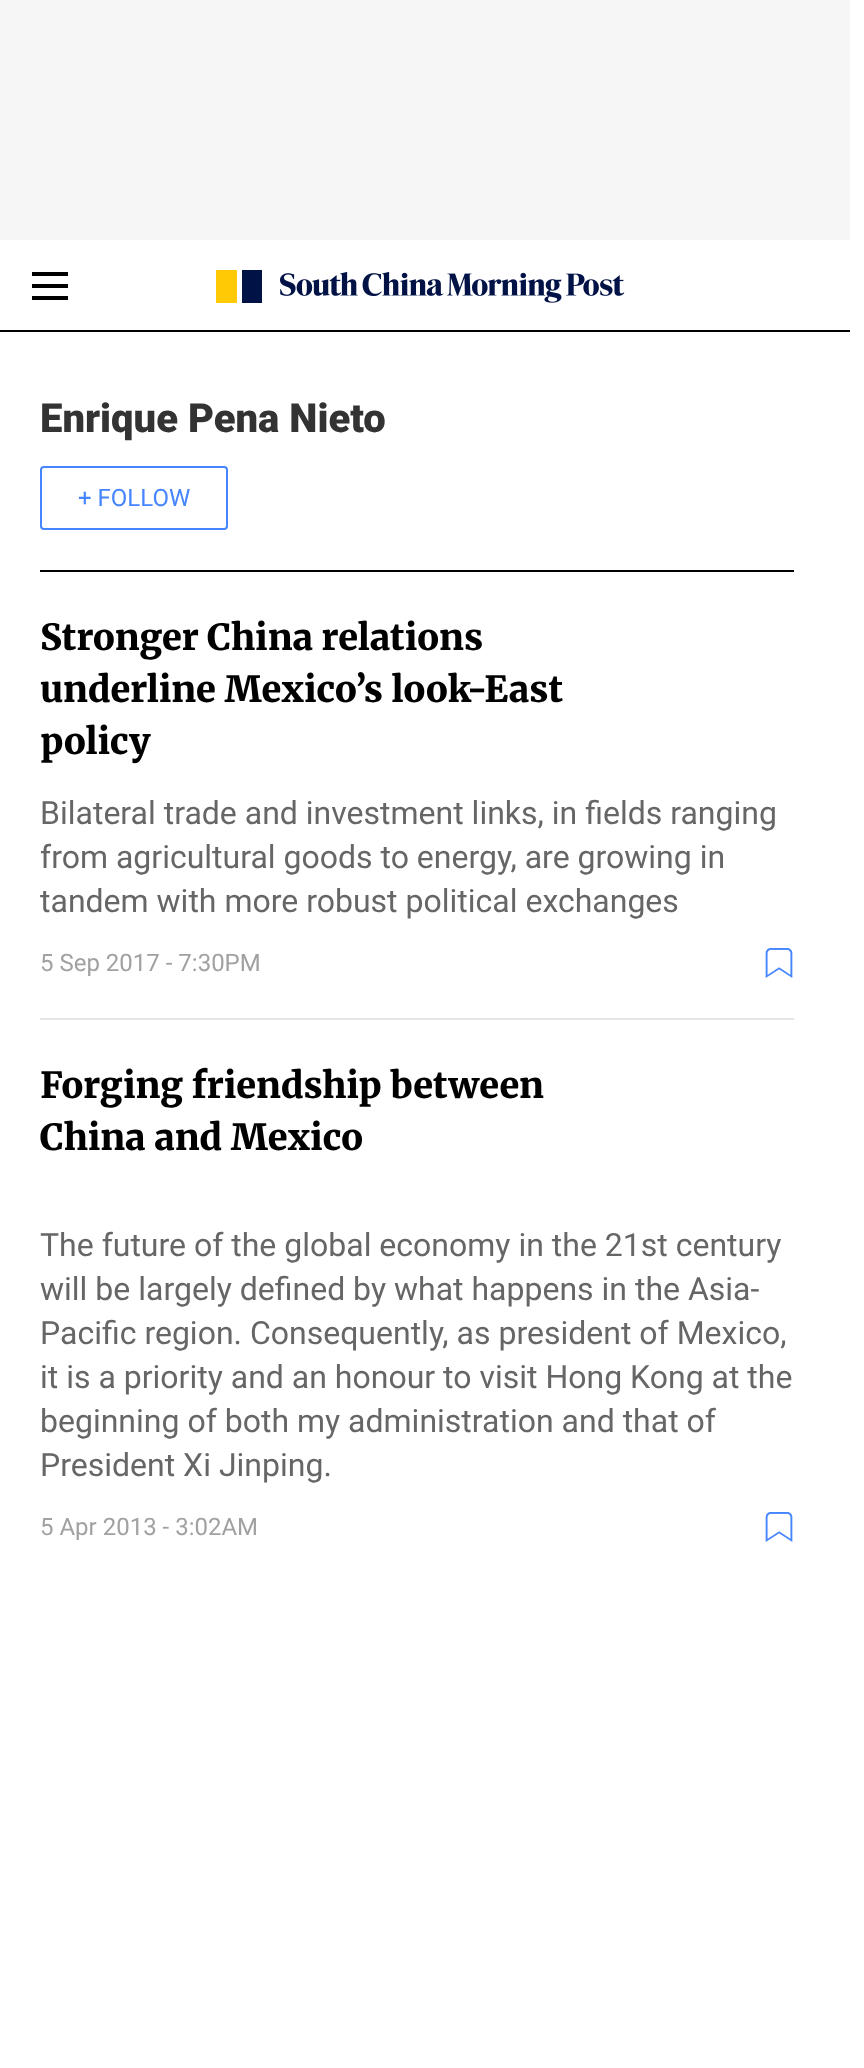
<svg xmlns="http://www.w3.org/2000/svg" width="864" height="2068">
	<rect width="100%" height="100%" fill="#FFFFFF" />
	<rect x="0" y="0" width="850" height="240" fill="#F6F6F6" />
	<rect x="0" y="330" width="850" height="2" fill="#000000" />
	<path d="M32 276H68V272H32ZM32 288H68V284H32ZM68 300H32V296H68Z" fill="#000000" fill-rule="evenodd" />
	<image x="216" y="270" width="409" height="33" href="assets/img1.png" />
	<text x="40" y="432" font-family="Roboto" font-size="40" font-weight="900" fill="#333333">Enrique Pena Nieto</text>
	<rect x="41" y="467" width="186" height="62" rx="3" fill="none" stroke="#4585FF" stroke-width="2" />
	<text x="78" y="506" font-family="Roboto" font-size="24" fill="#4585FF">+ FOLLOW</text>
	<rect x="40" y="570" width="754" height="2" fill="#000000" />
	<g font-family="Merriweather" font-size="36" font-weight="900" fill="#000000">
		<text x="40" y="650">Stronger China relations</text>
		<text x="40" y="702">underline Mexico’s look-East</text>
		<text x="40" y="754">policy</text>
	</g>
	<g font-family="Roboto" font-size="32" fill="#666666">
		<text x="40" y="824">Bilateral trade and investment links, in fields ranging</text>
		<text x="40" y="868">from agricultural goods to energy, are growing in</text>
		<text x="40" y="912">tandem with more robust political exchanges</text>
	</g>
	<text x="40" y="971" font-family="Roboto" font-size="24" fill="#A1A1A1">5 Sep 2017 - 7:30PM</text>
	<image x="765" y="948" width="28" height="30" href="assets/img2.png" />
	<rect x="40" y="1018" width="754" height="2" fill="#E5E5E5" />
	<g font-family="Merriweather" font-size="36" font-weight="900" fill="#000000">
		<text x="40" y="1098">Forging friendship between</text>
		<text x="40" y="1150">China and Mexico</text>
	</g>
	<g font-family="Roboto" font-size="32" fill="#666666">
		<text x="40" y="1256">The future of the global economy in the 21st century</text>
		<text x="40" y="1300">will be largely defined by what happens in the Asia-</text>
		<text x="40" y="1344">Pacific region. Consequently, as president of Mexico,</text>
		<text x="40" y="1388">it is a priority and an honour to visit Hong Kong at the</text>
		<text x="40" y="1432">beginning of both my administration and that of</text>
		<text x="40" y="1476">President Xi Jinping.</text>
	</g>
	<text x="40" y="1535" font-family="Roboto" font-size="24" fill="#A1A1A1">5 Apr 2013 - 3:02AM</text>
	<image x="765" y="1512" width="28" height="30" href="assets/img2.png" />
</svg>
